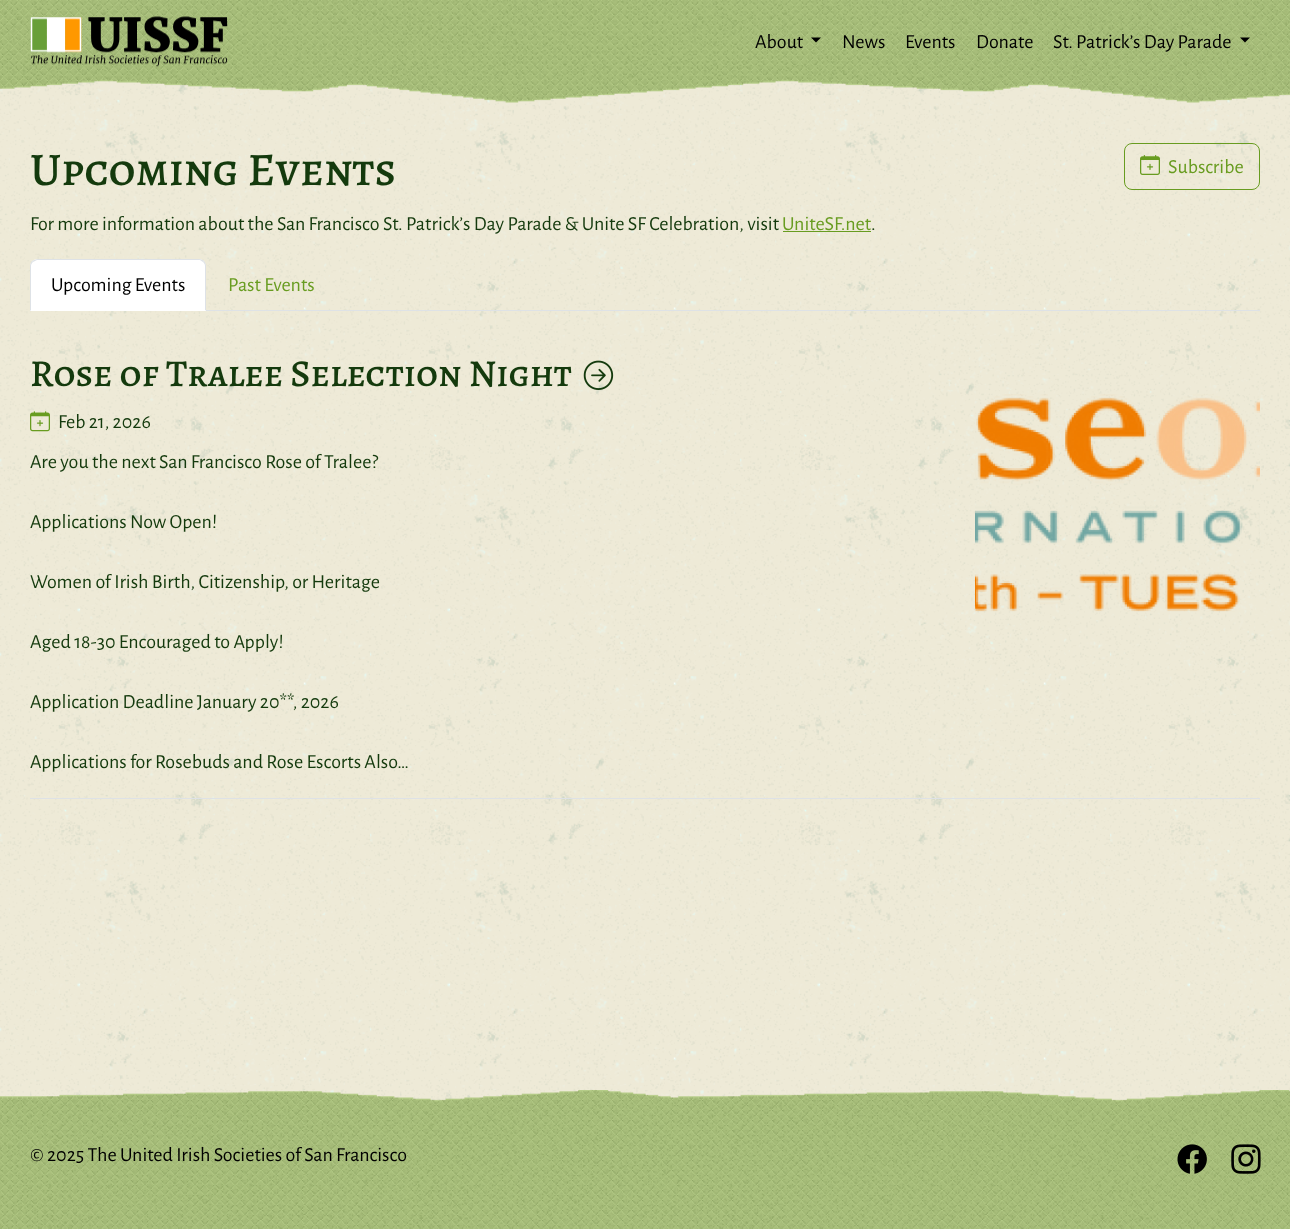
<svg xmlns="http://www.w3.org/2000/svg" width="1290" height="1229">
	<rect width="100%" height="100%" fill="#EEEAD7" />
	<image x="0" y="81" width="1290" height="1020" href="assets/img1.png" />
	<image x="0" y="0" width="1290" height="103" href="assets/img2.png" />
	<image x="30" y="16" width="198" height="51" href="assets/img3.png" />
	<text x="755" y="48" font-family="Alegreya Sans" font-size="20" fill="#000000">About</text>
	<path d="M811 37.5H821L816 42.5Z" fill="#000000" />
	<g font-family="Alegreya Sans" font-size="20" fill="#000000">
		<text x="842" y="48">News</text>
		<text x="905" y="48">Events</text>
		<text x="976" y="48">Donate</text>
		<text x="1053" y="48">St. Patrick’s Day Parade</text>
	</g>
	<path d="M1240 37.5H1250L1245 42.5Z" fill="#000000" />
	<text x="30" y="185" font-family="Alegreya SC" font-size="46.75" font-weight="500" fill="#143A0D">Upcoming Events</text>
	<rect x="1124.5" y="143.5" width="135" height="46" rx="7.5" fill="none" stroke="#689C20" />
	<image x="1140" y="155" width="20" height="20" href="assets/img4.png" />
	<text x="1168" y="173" font-family="Alegreya Sans" font-size="20" fill="#689C20">Subscribe</text>
	<text x="30" y="230" font-family="Alegreya Sans" font-size="20" fill="#143A0D">For more information about the San Francisco St. Patrick’s Day Parade &amp; Unite SF Celebration, visit</text>
	<text x="782" y="230" font-family="Alegreya Sans" font-size="20" fill="#689C20">UniteSF.net</text>
	<rect x="783" y="231" width="88" height="1" fill="#689C20" />
	<text x="871" y="230" font-family="Alegreya Sans" font-size="20" fill="#143A0D">.</text>
	<rect x="206" y="310" width="1054" height="1" fill="#DEE2E6" />
	<path d="M38 259H198C202.5 259 206 262.5 206 267V311H30V267C30 262.5 33.5 259 38 259Z" fill="#FFFFFF" />
	<path d="M38 259C36 259 34 260 32 261L33 262L37 260H200L203 262L204 261C203 260 201 259 199 259Z" fill="#DEE2E6" />
	<path d="M206 311V266C206 264 205 262 204 261L203 262C204 263 205 264 205 266V310Z" fill="#DEE2E6" />
	<path d="M206 311L205 310H31L30 311Z" fill="#FFFFFF" />
	<path d="M30 266V311L31 310V266C31 264 32 263 33 262L32 261C31 262 30 264 30 266Z" fill="#DEE2E6" />
	<text x="51" y="291" font-family="Alegreya Sans" font-size="20" fill="#000000">Upcoming Events</text>
	<text x="228" y="291" font-family="Alegreya Sans" font-size="20" fill="#689C20">Past Events</text>
	<rect x="30" y="798" width="1230" height="1" fill="#DEE2E6" />
	<text x="30" y="386" font-family="Alegreya SC" font-size="38.1" font-weight="500" fill="#143A0D">Rose of Tralee Selection Night</text>
	<image x="583" y="360" width="31" height="30" href="assets/img5.png" />
	<image x="30" y="411" width="20" height="21" href="assets/img6.png" />
	<g font-family="Alegreya Sans" font-size="20" fill="#143A0D">
		<text x="58" y="428">Feb 21, 2026</text>
		<text x="30" y="468">Are you the next San Francisco Rose of Tralee?</text>
		<text x="30" y="528">Applications Now Open!</text>
		<text x="30" y="588">Women of Irish Birth, Citizenship, or Heritage</text>
		<text x="30" y="648">Aged 18-30 Encouraged to Apply!</text>
		<text x="30" y="708">Application Deadline January 20**, 2026</text>
		<text x="30" y="768">Applications for Rosebuds and Rose Escorts Also…</text>
	</g>
	<image x="975" y="394" width="285" height="218" href="assets/img7.png" />
	<image x="0" y="1090" width="1290" height="139" href="assets/img8.png" />
	<text x="30" y="1161" font-family="Alegreya Sans" font-size="20" fill="#000000">© 2025 The United Irish Societies of San Francisco</text>
	<image x="1177" y="1144" width="30" height="30" href="assets/img9.png" />
	<image x="1231" y="1144" width="30" height="30" href="assets/img10.png" />
</svg>
